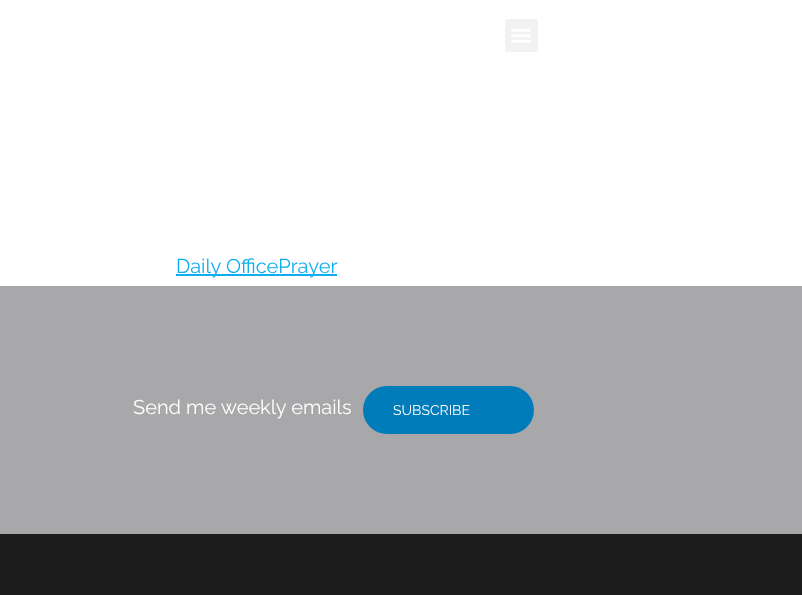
<svg xmlns="http://www.w3.org/2000/svg" width="802" height="595">
	<rect width="100%" height="100%" fill="#FFFFFF" />
	<rect x="505" y="19" width="33" height="33" rx="3" fill="#F2F2F2" />
	<image x="511" y="29" width="20" height="14" href="assets/img1.png" />
	<rect x="176" y="274" width="161" height="2" fill="#0FAEF0" />
	<text x="176" y="273" font-family="Raleway" font-size="20" fill="#0FAEF0">Daily OfficePrayer</text>
	<rect x="0" y="286" width="802" height="248" fill="#A8A8AA" />
	<text x="133" y="414" font-family="Raleway" font-size="20" fill="#FFFFFF">Send me weekly emails</text>
	<rect x="363" y="386" width="171" height="48" rx="24" fill="#007CBA" />
	<text x="393" y="415" font-family="Raleway" font-size="14" fill="#FFFFFF">SUBSCRIBE</text>
	<rect x="0" y="534" width="802" height="61" fill="#1C1C1C" />
</svg>
